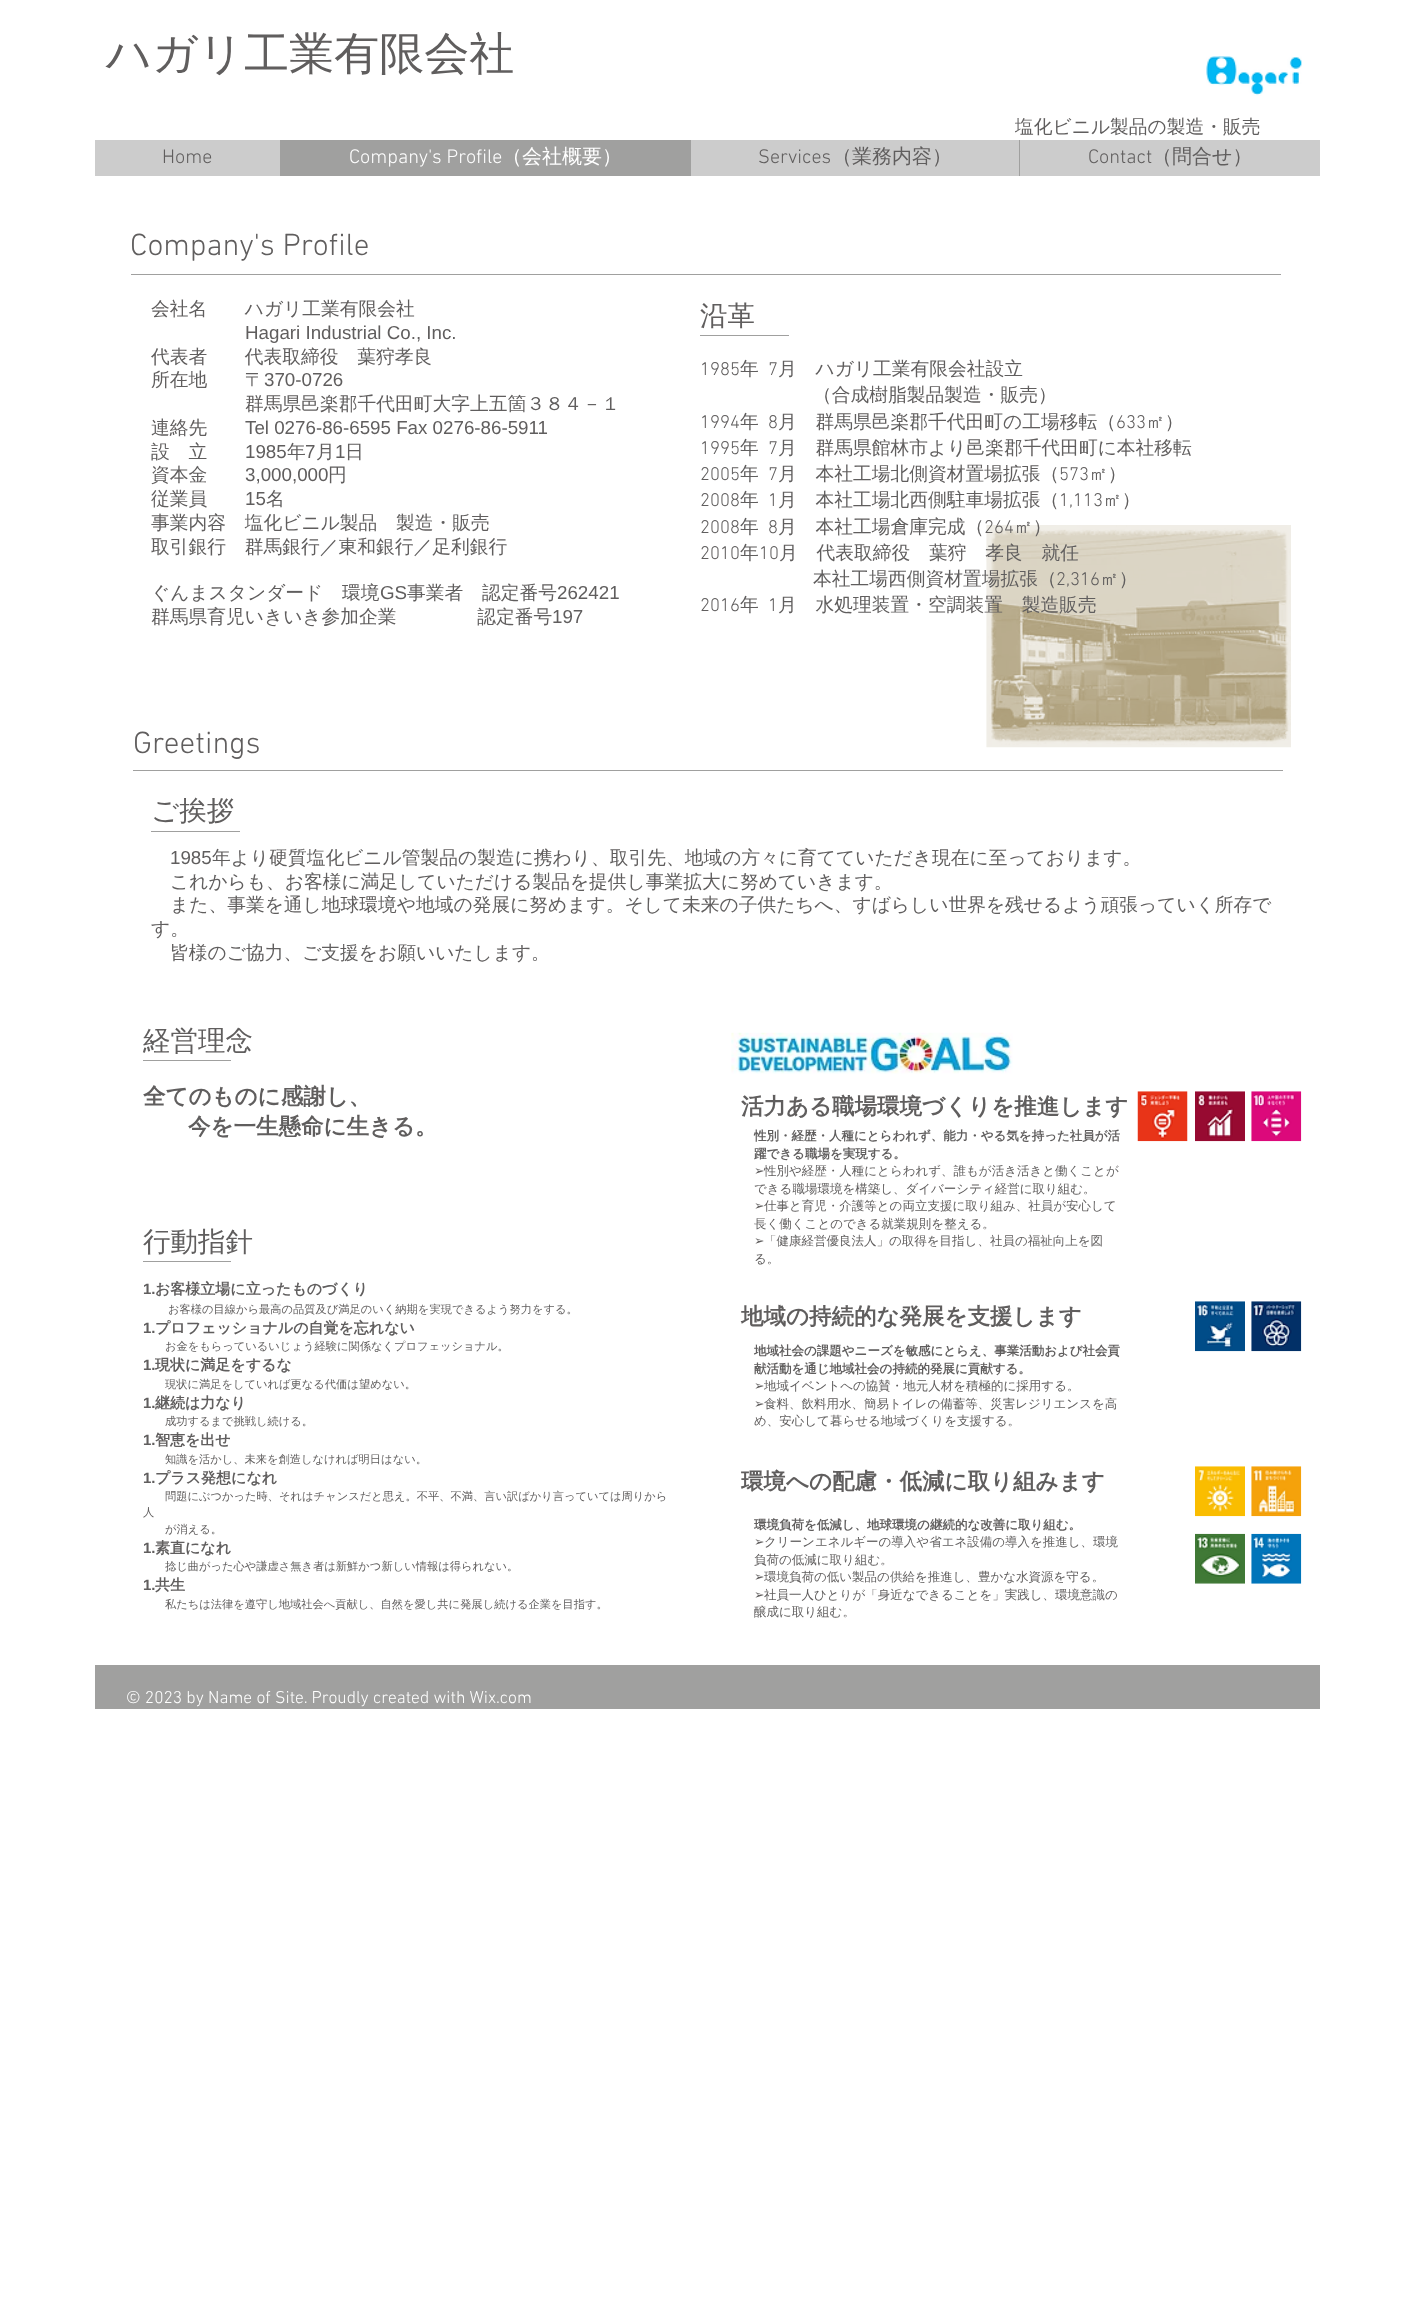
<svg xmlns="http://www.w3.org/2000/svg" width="1415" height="2298">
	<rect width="100%" height="100%" fill="#FFFFFF" />
	<text x="106" y="69" font-family="WenQuanYi Zen Hei" font-size="45" font-weight="500" fill="#605E5E">ハガリ工業有限会社</text>
	<image x="1206" y="56" width="96" height="40" href="assets/img1.png" />
	<text x="1015" y="133" font-family="WenQuanYi Zen Hei" font-size="18.75" font-weight="500" fill="#605E5E">塩化ビニル製品の製造・販売</text>
	<rect x="95" y="140" width="1225" height="36" fill="#CCCCCC" />
	<text x="162" y="163" font-family="'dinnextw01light'" font-size="20" font-weight="300" fill="#605E5E">Home</text>
	<rect x="280" y="140" width="411" height="36" fill="#A0A09F" />
	<text x="349" y="163" font-family="'dinnextw01light'" font-size="20" font-weight="300" fill="#FFFFFF">Company's Profile</text>
	<text x="502" y="163" font-family="WenQuanYi Zen Hei" font-size="20" font-weight="500" fill="#FFFFFF">（会社概要）</text>
	<text x="758" y="163" font-family="'dinnextw01light'" font-size="20" font-weight="300" fill="#605E5E">Services</text>
	<text x="832" y="163" font-family="WenQuanYi Zen Hei" font-size="20" font-weight="500" fill="#605E5E">（業務内容）</text>
	<rect x="1019" y="140" width="1" height="36" fill="#A0A09F" />
	<text x="1088" y="163" font-family="'dinnextw01light'" font-size="20" font-weight="300" fill="#605E5E">Contact</text>
	<text x="1152" y="163" font-family="WenQuanYi Zen Hei" font-size="20" font-weight="500" fill="#605E5E">（問合せ）</text>
	<text x="130" y="255" font-family="'dinnextw01light'" font-size="31.25" font-weight="300" fill="#605E5E">Company's Profile</text>
	<rect x="131" y="274" width="1150" height="1" fill="#A0A09F" />
	<text x="151" y="315" font-family="WenQuanYi Zen Hei" font-size="18.75" font-weight="500" fill="#605E5E">会社名　　ハガリ工業有限会社</text>
	<text x="245" y="339" font-family="Liberation Sans" font-size="18.75" fill="#605E5E">Hagari Industrial Co., Inc.</text>
	<g font-family="WenQuanYi Zen Hei" font-size="18.75" font-weight="500" fill="#605E5E">
		<text x="151" y="363">代表者　　代表取締役　葉狩孝良</text>
		<text x="151" y="386">所在地　　〒</text>
	</g>
	<text x="264" y="386" font-family="Liberation Sans" font-size="18.75" fill="#605E5E">370-0726</text>
	<g font-family="WenQuanYi Zen Hei" font-size="18.75" font-weight="500" fill="#605E5E">
		<text x="245" y="410">群馬県邑楽郡千代田町大字上五箇３８４－１</text>
		<text x="151" y="434">連絡先</text>
	</g>
	<text x="245" y="434" font-family="Liberation Sans" font-size="18.75" fill="#605E5E">Tel 0276-86-6595 Fax 0276-86-5911</text>
	<text x="151" y="458" font-family="WenQuanYi Zen Hei" font-size="18.75" font-weight="500" fill="#605E5E">設　立</text>
	<text x="245" y="458" font-family="Liberation Sans" font-size="18.75" fill="#605E5E">1985</text>
	<text x="287" y="458" font-family="WenQuanYi Zen Hei" font-size="18.75" font-weight="500" fill="#605E5E">年</text>
	<text x="305" y="458" font-family="Liberation Sans" font-size="18.75" fill="#605E5E">7</text>
	<text x="316" y="458" font-family="WenQuanYi Zen Hei" font-size="18.75" font-weight="500" fill="#605E5E">月</text>
	<text x="335" y="458" font-family="Liberation Sans" font-size="18.75" fill="#605E5E">1</text>
	<g font-family="WenQuanYi Zen Hei" font-size="18.75" font-weight="500" fill="#605E5E">
		<text x="345" y="458">日</text>
		<text x="151" y="481">資本金</text>
	</g>
	<text x="245" y="481" font-family="Liberation Sans" font-size="18.75" fill="#605E5E">3,000,000</text>
	<g font-family="WenQuanYi Zen Hei" font-size="18.75" font-weight="500" fill="#605E5E">
		<text x="328" y="481">円</text>
		<text x="151" y="505">従業員</text>
	</g>
	<text x="245" y="505" font-family="Liberation Sans" font-size="18.75" fill="#605E5E">15</text>
	<g font-family="WenQuanYi Zen Hei" font-size="18.75" font-weight="500" fill="#605E5E">
		<text x="266" y="505">名</text>
		<text x="151" y="529">事業内容　塩化ビニル製品　製造・販売</text>
		<text x="151" y="553">取引銀行　群馬銀行／東和銀行／足利銀行</text>
		<text x="151" y="599">ぐんまスタンダード　環境</text>
	</g>
	<text x="380" y="599" font-family="Liberation Sans" font-size="18.75" fill="#605E5E">GS</text>
	<text x="407" y="599" font-family="WenQuanYi Zen Hei" font-size="18.75" font-weight="500" fill="#605E5E">事業者　認定番号</text>
	<text x="557" y="599" font-family="Liberation Sans" font-size="18.75" fill="#605E5E">262421</text>
	<text x="151" y="623" font-family="WenQuanYi Zen Hei" font-size="18.75" font-weight="500" fill="#605E5E">群馬県育児いきいき参加企業　　　　 認定番号</text>
	<text x="552" y="623" font-family="Liberation Sans" font-size="18.75" fill="#605E5E">197</text>
	<text x="700" y="325" font-family="WenQuanYi Zen Hei" font-size="27.5" font-weight="500" fill="#605E5E">沿革</text>
	<rect x="700" y="335" width="89" height="1" fill="#A0A09F" />
	<text x="700" y="375" font-family="'dinnextw01light'" font-size="18.75" font-weight="300" fill="#605E5E">1985</text>
	<text x="740" y="375" font-family="WenQuanYi Zen Hei" font-size="18.75" font-weight="500" fill="#605E5E">年</text>
	<text x="768" y="375" font-family="'dinnextw01light'" font-size="18.75" font-weight="300" fill="#605E5E">7</text>
	<g font-family="WenQuanYi Zen Hei" font-size="18.75" font-weight="500" fill="#605E5E">
		<text x="778" y="375">月　ハガリ工業有限会社設立</text>
		<text x="813" y="401">（合成樹脂製品製造・販売）</text>
	</g>
	<text x="700" y="428" font-family="'dinnextw01light'" font-size="18.75" font-weight="300" fill="#605E5E">1994</text>
	<text x="740" y="428" font-family="WenQuanYi Zen Hei" font-size="18.75" font-weight="500" fill="#605E5E">年</text>
	<text x="768" y="428" font-family="'dinnextw01light'" font-size="18.75" font-weight="300" fill="#605E5E">8</text>
	<text x="778" y="428" font-family="WenQuanYi Zen Hei" font-size="18.75" font-weight="500" fill="#605E5E">月　群馬県邑楽郡千代田町の工場移転（</text>
	<text x="1116" y="428" font-family="'dinnextw01light'" font-size="18.75" font-weight="300" fill="#605E5E">633</text>
	<text x="1146" y="428" font-family="WenQuanYi Zen Hei" font-size="18.75" font-weight="500" fill="#605E5E">㎡）</text>
	<text x="700" y="454" font-family="'dinnextw01light'" font-size="18.75" font-weight="300" fill="#605E5E">1995</text>
	<text x="740" y="454" font-family="WenQuanYi Zen Hei" font-size="18.75" font-weight="500" fill="#605E5E">年</text>
	<text x="768" y="454" font-family="'dinnextw01light'" font-size="18.75" font-weight="300" fill="#605E5E">7</text>
	<text x="778" y="454" font-family="WenQuanYi Zen Hei" font-size="18.75" font-weight="500" fill="#605E5E">月　群馬県館林市より邑楽郡千代田町に本社移転</text>
	<text x="700" y="480" font-family="'dinnextw01light'" font-size="18.75" font-weight="300" fill="#605E5E">2005</text>
	<text x="740" y="480" font-family="WenQuanYi Zen Hei" font-size="18.75" font-weight="500" fill="#605E5E">年</text>
	<text x="768" y="480" font-family="'dinnextw01light'" font-size="18.75" font-weight="300" fill="#605E5E">7</text>
	<text x="778" y="480" font-family="WenQuanYi Zen Hei" font-size="18.75" font-weight="500" fill="#605E5E">月　本社工場北側資材置場拡張（</text>
	<text x="1059" y="480" font-family="'dinnextw01light'" font-size="18.75" font-weight="300" fill="#605E5E">573</text>
	<text x="1089" y="480" font-family="WenQuanYi Zen Hei" font-size="18.75" font-weight="500" fill="#605E5E">㎡）</text>
	<text x="700" y="506" font-family="'dinnextw01light'" font-size="18.75" font-weight="300" fill="#605E5E">2008</text>
	<text x="740" y="506" font-family="WenQuanYi Zen Hei" font-size="18.75" font-weight="500" fill="#605E5E">年</text>
	<text x="768" y="506" font-family="'dinnextw01light'" font-size="18.75" font-weight="300" fill="#605E5E">1</text>
	<text x="778" y="506" font-family="WenQuanYi Zen Hei" font-size="18.75" font-weight="500" fill="#605E5E">月　本社工場北西側駐車場拡張（</text>
	<text x="1059" y="506" font-family="'dinnextw01light'" font-size="18.75" font-weight="300" fill="#605E5E">1,113</text>
	<text x="1103" y="506" font-family="WenQuanYi Zen Hei" font-size="18.75" font-weight="500" fill="#605E5E">㎡）</text>
	<text x="700" y="533" font-family="'dinnextw01light'" font-size="18.75" font-weight="300" fill="#605E5E">2008</text>
	<text x="740" y="533" font-family="WenQuanYi Zen Hei" font-size="18.75" font-weight="500" fill="#605E5E">年</text>
	<text x="768" y="533" font-family="'dinnextw01light'" font-size="18.75" font-weight="300" fill="#605E5E">8</text>
	<text x="778" y="533" font-family="WenQuanYi Zen Hei" font-size="18.75" font-weight="500" fill="#605E5E">月　本社工場倉庫完成（</text>
	<image x="986" y="525" width="305" height="223" href="assets/img2.png" />
	<text x="984" y="533" font-family="'dinnextw01light'" font-size="18.75" font-weight="300" fill="#605E5E">264</text>
	<text x="1014" y="533" font-family="WenQuanYi Zen Hei" font-size="18.75" font-weight="500" fill="#605E5E">㎡）</text>
	<text x="700" y="559" font-family="'dinnextw01light'" font-size="18.75" font-weight="300" fill="#605E5E">2010</text>
	<text x="740" y="559" font-family="WenQuanYi Zen Hei" font-size="18.75" font-weight="500" fill="#605E5E">年</text>
	<text x="759" y="559" font-family="'dinnextw01light'" font-size="18.75" font-weight="300" fill="#605E5E">10</text>
	<g font-family="WenQuanYi Zen Hei" font-size="18.75" font-weight="500" fill="#605E5E">
		<text x="779" y="559">月　代表取締役　葉狩　孝良　就任</text>
		<text x="813" y="585">本社工場西側資材置場拡張（</text>
	</g>
	<text x="1056" y="585" font-family="'dinnextw01light'" font-size="18.75" font-weight="300" fill="#605E5E">2,316</text>
	<text x="1100" y="585" font-family="WenQuanYi Zen Hei" font-size="18.75" font-weight="500" fill="#605E5E">㎡）</text>
	<text x="700" y="611" font-family="'dinnextw01light'" font-size="18.75" font-weight="300" fill="#605E5E">2016</text>
	<text x="740" y="611" font-family="WenQuanYi Zen Hei" font-size="18.75" font-weight="500" fill="#605E5E">年</text>
	<text x="768" y="611" font-family="'dinnextw01light'" font-size="18.75" font-weight="300" fill="#605E5E">1</text>
	<text x="778" y="611" font-family="WenQuanYi Zen Hei" font-size="18.75" font-weight="500" fill="#605E5E">月　水処理装置・空調装置　製造販売</text>
	<text x="133" y="753" font-family="'dinnextw01light'" font-size="31.25" font-weight="300" fill="#605E5E">Greetings</text>
	<rect x="133" y="770" width="1150" height="1" fill="#A0A09F" />
	<text x="151" y="820" font-family="WenQuanYi Zen Hei" font-size="27.5" font-weight="500" fill="#605E5E">ご挨拶</text>
	<rect x="151" y="831" width="89" height="1" fill="#A0A09F" />
	<text x="170" y="864" font-family="Liberation Sans" font-size="18.75" fill="#605E5E">1985</text>
	<g font-family="WenQuanYi Zen Hei" font-size="18.75" font-weight="500" fill="#605E5E">
		<text x="212" y="864">年より硬質塩化ビニル管製品の製造に携わり、取引先、地域の方々に育てていただき現在に至っております。</text>
		<text x="170" y="888">これからも、お客様に満足していただける製品を提供し事業拡大に努めていきます。</text>
		<text x="170" y="911">また、事業を通し地球環境や地域の発展に努めます。そして未来の子供たちへ、すばらしい世界を残せるよう頑張っていく所存で</text>
		<text x="151" y="935">す。</text>
		<text x="170" y="959">皆様のご協力、ご支援をお願いいたします。</text>
	</g>
	<text x="143" y="1050" font-family="WenQuanYi Zen Hei" font-size="27.5" font-weight="500" fill="#605E5E">経営理念</text>
	<image x="731" y="1032" width="282" height="42" href="assets/img3.png" />
	<rect x="143" y="1060" width="88" height="1" fill="#A0A09F" />
	<g font-family="WenQuanYi Zen Hei" font-size="22.5" font-weight="700" fill="#605E5E">
		<text x="143" y="1104">全てのものに感謝し、</text>
		<text x="188" y="1134">今を一生懸命に生きる。</text>
		<text x="741" y="1114">活力ある職場環境づくりを推進します</text>
	</g>
	<image x="1137" y="1091" width="51" height="51" href="assets/img4.png" />
	<image x="1195" y="1091" width="50" height="51" href="assets/img5.png" />
	<image x="1251" y="1091" width="51" height="51" href="assets/img6.png" />
	<text x="143" y="1251" font-family="WenQuanYi Zen Hei" font-size="27.5" font-weight="500" fill="#605E5E">行動指針</text>
	<g font-family="WenQuanYi Zen Hei" font-size="12.5" font-weight="700" fill="#605E5E">
		<text x="754" y="1140">性別・経歴・人種にとらわれず、能力・やる気を持った社員が活</text>
		<text x="754" y="1158">躍できる職場を実現する。</text>
	</g>
	<text x="754" y="1175" font-family="DejaVu Sans" font-size="12.5" fill="#605E5E">➢</text>
	<g font-family="WenQuanYi Zen Hei" font-size="12.5" font-weight="500" fill="#605E5E">
		<text x="764" y="1175">性別や経歴・人種にとらわれず、誰もが活き活きと働くことが</text>
		<text x="754" y="1193">できる職場環境を構築し、ダイバーシティ経営に取り組む。</text>
	</g>
	<text x="754" y="1210" font-family="DejaVu Sans" font-size="12.5" fill="#605E5E">➢</text>
	<g font-family="WenQuanYi Zen Hei" font-size="12.5" font-weight="500" fill="#605E5E">
		<text x="764" y="1210">仕事と育児・介護等との両立支援に取り組み、社員が安心して</text>
		<text x="754" y="1228">長く働くことのできる就業規則を整える。</text>
	</g>
	<text x="754" y="1245" font-family="DejaVu Sans" font-size="12.5" fill="#605E5E">➢</text>
	<g font-family="WenQuanYi Zen Hei" font-size="12.5" font-weight="500" fill="#605E5E">
		<text x="764" y="1245">「健康経営優良法人」の取得を目指し、社員の福祉向上を図</text>
		<text x="754" y="1263">る。</text>
	</g>
	<rect x="143" y="1261" width="88" height="1" fill="#A0A09F" />
	<text x="143" y="1294" font-family="Liberation Sans" font-size="15" font-weight="700" fill="#605E5E">1.</text>
	<text x="155" y="1294" font-family="WenQuanYi Zen Hei" font-size="15" font-weight="700" fill="#605E5E">お客様立場に立ったものづくり</text>
	<text x="168" y="1313" font-family="WenQuanYi Zen Hei" font-size="11.25" font-weight="500" fill="#605E5E">お客様の目線から最高の品質及び満足のいく納期を実現できるよう努力をする。</text>
	<text x="143" y="1333" font-family="Liberation Sans" font-size="15" font-weight="700" fill="#605E5E">1.</text>
	<text x="155" y="1333" font-family="WenQuanYi Zen Hei" font-size="15" font-weight="700" fill="#605E5E">プロフェッショナルの自覚を忘れない</text>
	<text x="165" y="1350" font-family="WenQuanYi Zen Hei" font-size="11.25" font-weight="500" fill="#605E5E">お金をもらっているいじょう経験に関係なくプロフェッショナル。</text>
	<text x="143" y="1370" font-family="Liberation Sans" font-size="15" font-weight="700" fill="#605E5E">1.</text>
	<text x="155" y="1370" font-family="WenQuanYi Zen Hei" font-size="15" font-weight="700" fill="#605E5E">現状に満足をするな</text>
	<text x="165" y="1388" font-family="WenQuanYi Zen Hei" font-size="11.25" font-weight="500" fill="#605E5E">現状に満足をしていれば更なる代価は望めない。</text>
	<text x="143" y="1408" font-family="Liberation Sans" font-size="15" font-weight="700" fill="#605E5E">1.</text>
	<text x="155" y="1408" font-family="WenQuanYi Zen Hei" font-size="15" font-weight="700" fill="#605E5E">継続は力なり</text>
	<text x="165" y="1425" font-family="WenQuanYi Zen Hei" font-size="11.25" font-weight="500" fill="#605E5E">成功するまで挑戦し続ける。</text>
	<text x="143" y="1445" font-family="Liberation Sans" font-size="15" font-weight="700" fill="#605E5E">1.</text>
	<text x="155" y="1445" font-family="WenQuanYi Zen Hei" font-size="15" font-weight="700" fill="#605E5E">智恵を出せ</text>
	<text x="165" y="1463" font-family="WenQuanYi Zen Hei" font-size="11.25" font-weight="500" fill="#605E5E">知識を活かし、未来を創造しなければ明日はない。</text>
	<text x="143" y="1483" font-family="Liberation Sans" font-size="15" font-weight="700" fill="#605E5E">1.</text>
	<text x="155" y="1483" font-family="WenQuanYi Zen Hei" font-size="15" font-weight="700" fill="#605E5E">プラス発想になれ</text>
	<g font-family="WenQuanYi Zen Hei" font-size="11.25" font-weight="500" fill="#605E5E">
		<text x="165" y="1500">問題にぶつかった時、それはチャンスだと思え。不平、不満、言い訳ばかり言っていては周りから</text>
		<text x="143" y="1516">人</text>
		<text x="165" y="1533">が消える。</text>
	</g>
	<text x="143" y="1553" font-family="Liberation Sans" font-size="15" font-weight="700" fill="#605E5E">1.</text>
	<text x="155" y="1553" font-family="WenQuanYi Zen Hei" font-size="15" font-weight="700" fill="#605E5E">素直になれ</text>
	<text x="165" y="1570" font-family="WenQuanYi Zen Hei" font-size="11.25" font-weight="500" fill="#605E5E">捻じ曲がった心や謙虚さ無き者は新鮮かつ新しい情報は得られない。</text>
	<text x="143" y="1590" font-family="Liberation Sans" font-size="15" font-weight="700" fill="#605E5E">1.</text>
	<text x="155" y="1590" font-family="WenQuanYi Zen Hei" font-size="15" font-weight="700" fill="#605E5E">共生</text>
	<text x="165" y="1608" font-family="WenQuanYi Zen Hei" font-size="11.25" font-weight="500" fill="#605E5E">私たちは法律を遵守し地域社会へ貢献し、自然を愛し共に発展し続ける企業を目指す。</text>
	<text x="741" y="1324" font-family="WenQuanYi Zen Hei" font-size="22.5" font-weight="700" fill="#605E5E">地域の持続的な発展を支援します</text>
	<image x="1195" y="1301" width="50" height="51" href="assets/img7.png" />
	<image x="1251" y="1301" width="51" height="51" href="assets/img8.png" />
	<g font-family="WenQuanYi Zen Hei" font-size="12.5" font-weight="700" fill="#605E5E">
		<text x="754" y="1355">地域社会の課題やニーズを敏感にとらえ、事業活動および社会貢</text>
		<text x="754" y="1373">献活動を通じ地域社会の持続的発展に貢献する。</text>
	</g>
	<text x="754" y="1390" font-family="DejaVu Sans" font-size="12.5" fill="#605E5E">➢</text>
	<text x="764" y="1390" font-family="WenQuanYi Zen Hei" font-size="12.5" font-weight="500" fill="#605E5E">地域イベントへの協賛・地元人材を積極的に採用する。</text>
	<text x="754" y="1408" font-family="DejaVu Sans" font-size="12.5" fill="#605E5E">➢</text>
	<g font-family="WenQuanYi Zen Hei" font-size="12.5" font-weight="500" fill="#605E5E">
		<text x="764" y="1408">食料、飲料用水、簡易トイレの備蓄等、災害レジリエンスを高</text>
		<text x="754" y="1425">め、安心して暮らせる地域づくりを支援する。</text>
	</g>
	<text x="741" y="1489" font-family="WenQuanYi Zen Hei" font-size="22.5" font-weight="700" fill="#605E5E">環境への配慮・低減に取り組みます</text>
	<image x="1195" y="1466" width="50" height="51" href="assets/img9.png" />
	<image x="1251" y="1466" width="51" height="51" href="assets/img10.png" />
	<text x="754" y="1529" font-family="WenQuanYi Zen Hei" font-size="12.5" font-weight="700" fill="#605E5E">環境負荷を低減し、地球環境の継続的な改善に取り組む。</text>
	<text x="754" y="1546" font-family="DejaVu Sans" font-size="12.5" fill="#605E5E">➢</text>
	<g font-family="WenQuanYi Zen Hei" font-size="12.5" font-weight="500" fill="#605E5E">
		<text x="764" y="1546">クリーンエネルギーの導入や省エネ設備の導入を推進し、環境</text>
		<text x="754" y="1564">負荷の低減に取り組む。</text>
	</g>
	<text x="754" y="1581" font-family="DejaVu Sans" font-size="12.5" fill="#605E5E">➢</text>
	<text x="764" y="1581" font-family="WenQuanYi Zen Hei" font-size="12.5" font-weight="500" fill="#605E5E">環境負荷の低い製品の供給を推進し、豊かな水資源を守る。</text>
	<text x="754" y="1599" font-family="DejaVu Sans" font-size="12.5" fill="#605E5E">➢</text>
	<g font-family="WenQuanYi Zen Hei" font-size="12.5" font-weight="500" fill="#605E5E">
		<text x="764" y="1599">社員一人ひとりが「身近なできることを」実践し、環境意識の</text>
		<text x="754" y="1616">醸成に取り組む。</text>
	</g>
	<image x="1195" y="1533" width="50" height="51" href="assets/img11.png" />
	<image x="1251" y="1533" width="51" height="51" href="assets/img12.png" />
	<rect x="95" y="1665" width="1225" height="44" fill="#A0A09F" />
	<text x="126" y="1703" font-family="'dinnextw01light'" font-size="17.5" font-weight="300" fill="#FFFFFF">© 2023 by Name of Site. Proudly created with Wix.com</text>
</svg>
